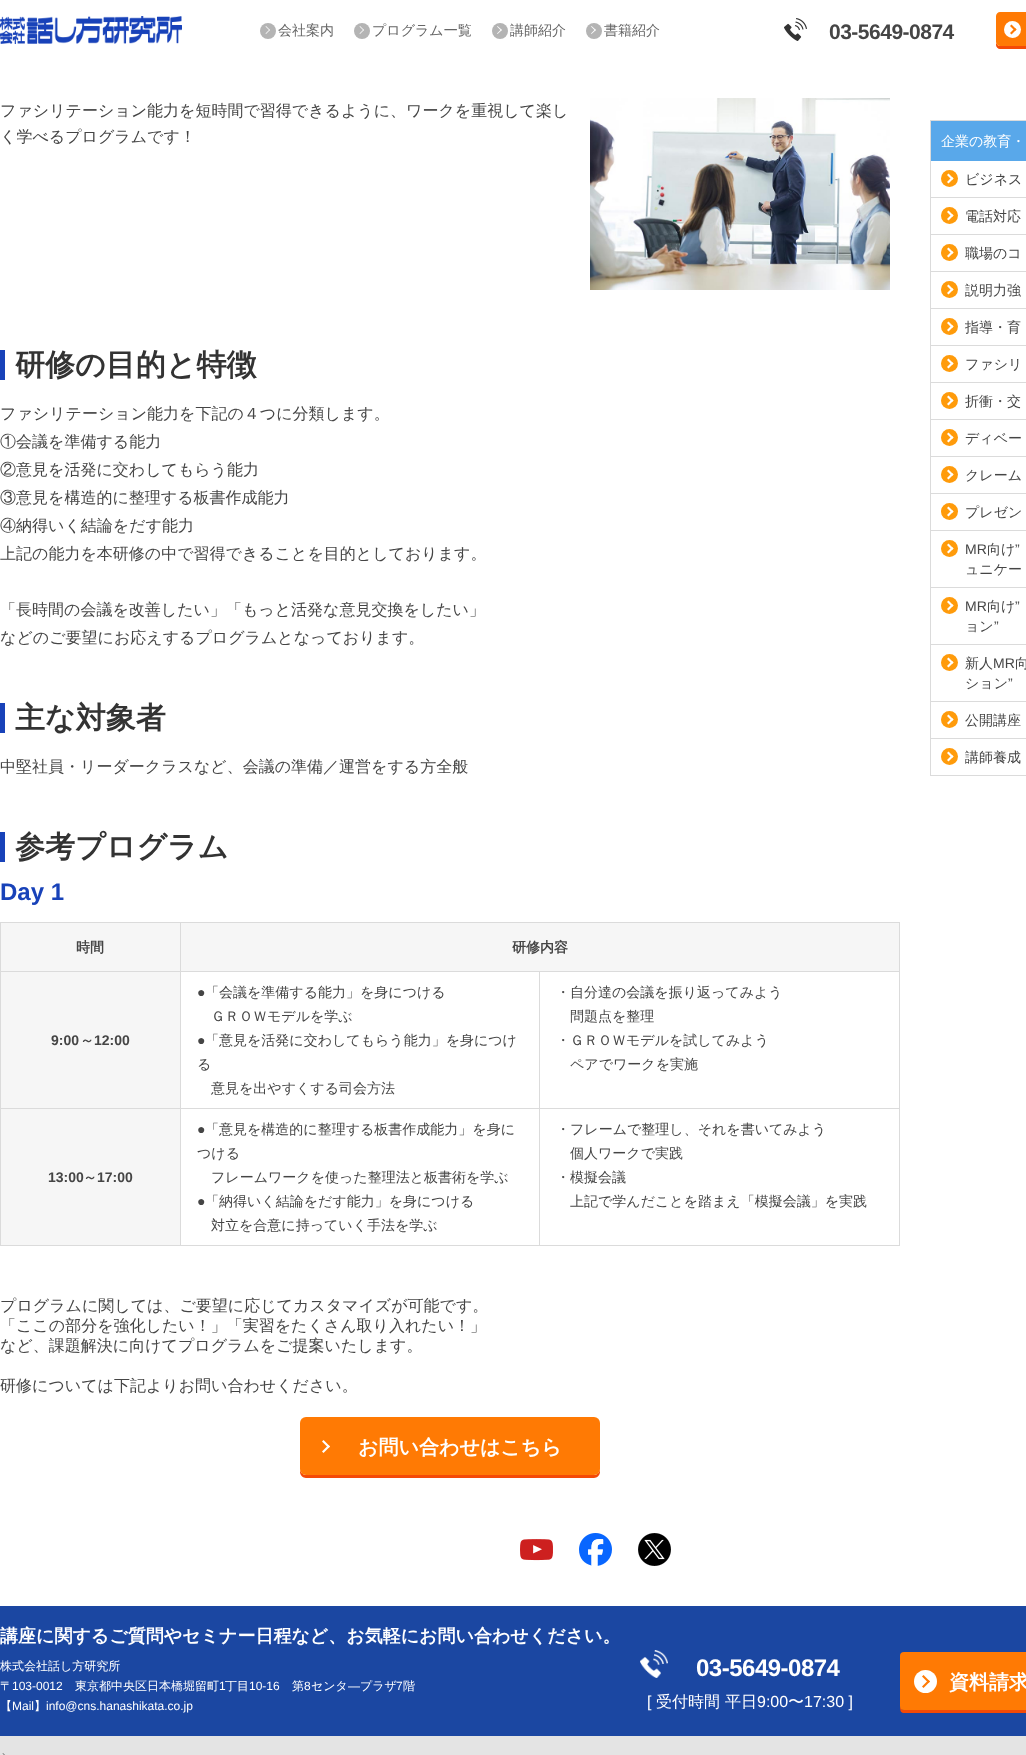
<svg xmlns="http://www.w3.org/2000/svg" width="1026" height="1755">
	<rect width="100%" height="100%" fill="#FFFFFF" />
	<image x="0" y="16" width="182" height="28" href="assets/img1.png" />
	<circle cx="268" cy="31" r="8" fill="#B4B4B4" />
	<text x="278" y="35" font-family="WenQuanYi Zen Hei" font-size="14" font-weight="500" fill="#666666">会社案内</text>
	<path d="M266 26L270 30L269.5 30.5L265.5 26.5Z" fill="#FFFFFF" />
	<path d="M269.5 29.5L270 30L266 34L265.5 33.5Z" fill="#FFFFFF" />
	<circle cx="362" cy="31" r="8" fill="#B4B4B4" />
	<text x="372" y="35" font-family="WenQuanYi Zen Hei" font-size="14" font-weight="500" fill="#666666">プログラム一覧</text>
	<path d="M360 26L364 30L363.5 30.5L359.5 26.5Z" fill="#FFFFFF" />
	<path d="M363.5 29.5L364 30L360 34L359.5 33.5Z" fill="#FFFFFF" />
	<circle cx="500" cy="31" r="8" fill="#B4B4B4" />
	<text x="510" y="35" font-family="WenQuanYi Zen Hei" font-size="14" font-weight="500" fill="#666666">講師紹介</text>
	<path d="M497.5 26L502 30L501 30.5L497 26.5Z" fill="#FFFFFF" />
	<path d="M501 29.5L502 30L497.5 34L497 33.5Z" fill="#FFFFFF" />
	<circle cx="594" cy="31" r="8" fill="#B4B4B4" />
	<text x="604" y="35" font-family="WenQuanYi Zen Hei" font-size="14" font-weight="500" fill="#666666">書籍紹介</text>
	<path d="M591.5 26L596 30L595 30.5L591 26.5Z" fill="#FFFFFF" />
	<path d="M595 29.5L596 30L591.5 34L591 33.5Z" fill="#FFFFFF" />
	<image x="784" y="18" width="23" height="23" href="assets/img2.png" />
	<text x="829" y="39" font-family="Liberation Sans" font-size="21" font-weight="700" letter-spacing="-0.5" fill="#454545">03-5649-0874</text>
	<path d="M996 42V45C996 47 998 49 1000 49H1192C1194 49 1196 47 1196 45V42C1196 44 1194 46 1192 46H1000C998 46 996 44 996 42Z" fill="#F44A07" />
	<path d="M1000 12H1026V46H1000C998 46 996 44 996 42V16C996 14 998 12 1000 12Z" fill="#FF7A04" />
	<circle cx="1012.5" cy="29.5" r="8.5" fill="#FFFFFF" />
	<path d="M1011.5 24.5L1016.5 29.5L1015 31L1010 26Z" fill="#FF7A04" />
	<path d="M1015 28L1016.5 29.5L1011.5 34.5L1010 33Z" fill="#FF7A04" />
	<g font-family="WenQuanYi Zen Hei" font-size="16" font-weight="500" fill="#454545">
		<text x="0" y="116">ファシリテーション能力を短時間で習得できるように、ワークを重視して楽し</text>
		<text x="0" y="142">く学べるプログラムです！</text>
	</g>
	<image x="590" y="98" width="300" height="192" href="assets/img3.png" />
	<rect x="0" y="350" width="5" height="30" fill="#1842B9" />
	<text x="15" y="375" font-family="WenQuanYi Zen Hei" font-size="30" font-weight="700" fill="#333333">研修の目的と特徴</text>
	<g font-family="WenQuanYi Zen Hei" font-size="16" font-weight="500" fill="#454545">
		<text x="0" y="419">ファシリテーション能力を下記の４つに分類します。</text>
		<text x="0" y="447">①会議を準備する能力</text>
		<text x="0" y="475">②意見を活発に交わしてもらう能力</text>
		<text x="0" y="503">③意見を構造的に整理する板書作成能力</text>
		<text x="0" y="531">④納得いく結論をだす能力</text>
		<text x="0" y="559">上記の能力を本研修の中で習得できることを目的としております。</text>
		<text x="0" y="615">「長時間の会議を改善したい」「もっと活発な意見交換をしたい」</text>
		<text x="0" y="643">などのご要望にお応えするプログラムとなっております。</text>
	</g>
	<rect x="0" y="703" width="5" height="30" fill="#1842B9" />
	<text x="15" y="728" font-family="WenQuanYi Zen Hei" font-size="30" font-weight="700" fill="#333333">主な対象者</text>
	<text x="0" y="772" font-family="WenQuanYi Zen Hei" font-size="16" font-weight="500" fill="#454545">中堅社員・リーダークラスなど、会議の準備／運営をする方全般</text>
	<rect x="0" y="832" width="5" height="30" fill="#1842B9" />
	<text x="15" y="857" font-family="WenQuanYi Zen Hei" font-size="30" font-weight="700" fill="#333333">参考プログラム</text>
	<text x="0" y="900" font-family="Liberation Sans" font-size="24" font-weight="700" fill="#1842B9">Day 1</text>
	<rect x="0" y="922" width="900" height="1" fill="#DBDBDB" />
	<rect x="899" y="922" width="1" height="324" fill="#DBDBDB" />
	<rect x="0" y="1245" width="900" height="1" fill="#DBDBDB" />
	<rect x="0" y="922" width="1" height="324" fill="#DBDBDB" />
	<rect x="1" y="923" width="179" height="48" fill="#F6F6F6" />
	<rect x="539" y="1108" width="1" height="138" fill="#DBDBDB" />
	<rect x="539" y="1108" width="361" height="1" fill="#DBDBDB" />
	<rect x="539" y="971" width="1" height="138" fill="#DBDBDB" />
	<rect x="180" y="1108" width="1" height="138" fill="#DBDBDB" />
	<rect x="180" y="1108" width="360" height="1" fill="#DBDBDB" />
	<rect x="180" y="971" width="1" height="138" fill="#DBDBDB" />
	<rect x="180" y="971" width="720" height="1" fill="#DBDBDB" />
	<rect x="180" y="922" width="1" height="50" fill="#DBDBDB" />
	<rect x="0" y="971" width="181" height="1" fill="#DBDBDB" />
	<text x="76" y="952" font-family="WenQuanYi Zen Hei" font-size="14" font-weight="700" fill="#454545">時間</text>
	<rect x="181" y="923" width="718" height="48" fill="#F6F6F6" />
	<text x="512" y="952" font-family="WenQuanYi Zen Hei" font-size="14" font-weight="700" fill="#454545">研修内容</text>
	<rect x="1" y="972" width="179" height="136" fill="#F6F6F6" />
	<rect x="0" y="1108" width="181" height="1" fill="#DBDBDB" />
	<text x="51" y="1045" font-family="Liberation Sans" font-size="14" font-weight="700" fill="#454545">9:00</text>
	<text x="80" y="1045" font-family="WenQuanYi Zen Hei" font-size="14" font-weight="700" fill="#454545">～</text>
	<text x="94" y="1045" font-family="Liberation Sans" font-size="14" font-weight="700" fill="#454545">12:00</text>
	<text x="197" y="997" font-family="Liberation Sans" font-size="14" fill="#454545">●</text>
	<g font-family="WenQuanYi Zen Hei" font-size="14" font-weight="500" fill="#454545">
		<text x="205" y="997">「会議を準備する能力」を身につける</text>
		<text x="211" y="1021">ＧＲＯＷモデルを学ぶ</text>
	</g>
	<text x="197" y="1045" font-family="Liberation Sans" font-size="14" fill="#454545">●</text>
	<g font-family="WenQuanYi Zen Hei" font-size="14" font-weight="500" fill="#454545">
		<text x="205" y="1045">「意見を活発に交わしてもらう能力」を身につけ</text>
		<text x="197" y="1069">る</text>
		<text x="211" y="1093">意見を出やすくする司会方法</text>
		<text x="556" y="997">・自分達の会議を振り返ってみよう</text>
		<text x="570" y="1021">問題点を整理</text>
		<text x="556" y="1045">・ＧＲＯＷモデルを試してみよう</text>
		<text x="570" y="1069">ペアでワークを実施</text>
	</g>
	<rect x="1" y="1109" width="179" height="136" fill="#F6F6F6" />
	<text x="48" y="1182" font-family="Liberation Sans" font-size="14" font-weight="700" fill="#454545">13:00</text>
	<text x="83" y="1182" font-family="WenQuanYi Zen Hei" font-size="14" font-weight="700" fill="#454545">～</text>
	<text x="97" y="1182" font-family="Liberation Sans" font-size="14" font-weight="700" fill="#454545">17:00</text>
	<text x="197" y="1134" font-family="Liberation Sans" font-size="14" fill="#454545">●</text>
	<g font-family="WenQuanYi Zen Hei" font-size="14" font-weight="500" fill="#454545">
		<text x="205" y="1134">「意見を構造的に整理する板書作成能力」を身に</text>
		<text x="197" y="1158">つける</text>
		<text x="211" y="1182">フレームワークを使った整理法と板書術を学ぶ</text>
	</g>
	<text x="197" y="1206" font-family="Liberation Sans" font-size="14" fill="#454545">●</text>
	<g font-family="WenQuanYi Zen Hei" font-size="14" font-weight="500" fill="#454545">
		<text x="205" y="1206">「納得いく結論をだす能力」を身につける</text>
		<text x="211" y="1230">対立を合意に持っていく手法を学ぶ</text>
		<text x="556" y="1134">・フレームで整理し、それを書いてみよう</text>
		<text x="570" y="1158">個人ワークで実践</text>
		<text x="556" y="1182">・模擬会議</text>
		<text x="570" y="1206">上記で学んだことを踏まえ「模擬会議」を実践</text>
	</g>
	<g font-family="WenQuanYi Zen Hei" font-size="16" font-weight="500" fill="#454545">
		<text x="0" y="1311">プログラムに関しては、ご要望に応じてカスタマイズが可能です。</text>
		<text x="0" y="1331">「ここの部分を強化したい！」「実習をたくさん取り入れたい！」</text>
		<text x="0" y="1351">など、課題解決に向けてプログラムをご提案いたします。</text>
		<text x="0" y="1391">研修については下記よりお問い合わせください。</text>
	</g>
	<path d="M300 1469V1472C300 1475 303 1478 306 1478H594C597 1478 600 1475 600 1472V1469C600 1472 597 1475 594 1475H306C303 1475 300 1472 300 1469Z" fill="#F44A07" />
	<rect x="300" y="1417" width="300" height="58" rx="6" fill="#FF7A04" />
	<path d="M323.5 1440L330 1446.5L328.5 1448L322 1441.5Z" fill="#FFFFFF" />
	<path d="M328.5 1445L330 1446.5L323.5 1453L322 1451.5Z" fill="#FFFFFF" />
	<text x="358" y="1454" font-family="WenQuanYi Zen Hei" font-size="20" font-weight="700" fill="#FFFFFF">お問い合わせはこちら</text>
	<rect x="930.5" y="120.5" width="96" height="655" fill="none" stroke="#DBDBDB" />
	<rect x="931" y="121" width="95" height="40" fill="#59A8EA" />
	<text x="941" y="146" font-family="WenQuanYi Zen Hei" font-size="14" font-weight="500" fill="#FFFFFF">企業の教育・</text>
	<rect x="931" y="197" width="95" height="1" fill="#DBDBDB" />
	<circle cx="949.5" cy="178.5" r="8.5" fill="#FF9B0B" />
	<text x="965" y="184" font-family="WenQuanYi Zen Hei" font-size="14" font-weight="500" fill="#454545">ビジネス</text>
	<path d="M948.5 173.5L953.5 178.5L952 180L947 175Z" fill="#FFFFFF" />
	<path d="M952 177L953.5 178.5L948.5 183.5L947 182Z" fill="#FFFFFF" />
	<rect x="931" y="234" width="95" height="1" fill="#DBDBDB" />
	<circle cx="949.5" cy="215.5" r="8.5" fill="#FF9B0B" />
	<text x="965" y="221" font-family="WenQuanYi Zen Hei" font-size="14" font-weight="500" fill="#454545">電話対応</text>
	<path d="M948.5 210.5L953.5 215.5L952 217L947 212Z" fill="#FFFFFF" />
	<path d="M952 214L953.5 215.5L948.5 220.5L947 219Z" fill="#FFFFFF" />
	<rect x="931" y="271" width="95" height="1" fill="#DBDBDB" />
	<circle cx="949.5" cy="252.5" r="8.5" fill="#FF9B0B" />
	<text x="965" y="258" font-family="WenQuanYi Zen Hei" font-size="14" font-weight="500" fill="#454545">職場のコ</text>
	<path d="M948.5 247.5L953.5 252.5L952 254L947 249Z" fill="#FFFFFF" />
	<path d="M952 251L953.5 252.5L948.5 257.5L947 256Z" fill="#FFFFFF" />
	<rect x="931" y="308" width="95" height="1" fill="#DBDBDB" />
	<circle cx="949.5" cy="289.5" r="8.5" fill="#FF9B0B" />
	<text x="965" y="295" font-family="WenQuanYi Zen Hei" font-size="14" font-weight="500" fill="#454545">説明力強</text>
	<path d="M948.5 284.5L953.5 289.5L952 291L947 286Z" fill="#FFFFFF" />
	<path d="M952 288L953.5 289.5L948.5 294.5L947 293Z" fill="#FFFFFF" />
	<rect x="931" y="345" width="95" height="1" fill="#DBDBDB" />
	<circle cx="949.5" cy="326.5" r="8.5" fill="#FF9B0B" />
	<text x="965" y="332" font-family="WenQuanYi Zen Hei" font-size="14" font-weight="500" fill="#454545">指導・育</text>
	<path d="M948.5 321.5L953.5 326.5L952 328L947 323Z" fill="#FFFFFF" />
	<path d="M952 325L953.5 326.5L948.5 331.5L947 330Z" fill="#FFFFFF" />
	<rect x="931" y="382" width="95" height="1" fill="#DBDBDB" />
	<circle cx="949.5" cy="363.5" r="8.5" fill="#FF9B0B" />
	<path d="M948.5 358.5L953.5 363.5L952 365L947 360Z" fill="#FFFFFF" />
	<path d="M952 362L953.5 363.5L948.5 368.5L947 367Z" fill="#FFFFFF" />
	<text x="965" y="369" font-family="WenQuanYi Zen Hei" font-size="14" font-weight="500" fill="#454545">ファシリ</text>
	<rect x="931" y="419" width="95" height="1" fill="#DBDBDB" />
	<circle cx="949.5" cy="400.5" r="8.5" fill="#FF9B0B" />
	<text x="965" y="406" font-family="WenQuanYi Zen Hei" font-size="14" font-weight="500" fill="#454545">折衝・交</text>
	<path d="M948.5 395.5L953.5 400.5L952 402L947 397Z" fill="#FFFFFF" />
	<path d="M952 399L953.5 400.5L948.5 405.5L947 404Z" fill="#FFFFFF" />
	<rect x="931" y="456" width="95" height="1" fill="#DBDBDB" />
	<circle cx="949.5" cy="437.5" r="8.5" fill="#FF9B0B" />
	<path d="M948.5 432.5L953.5 437.5L952 439L947 434Z" fill="#FFFFFF" />
	<path d="M952 436L953.5 437.5L948.5 442.5L947 441Z" fill="#FFFFFF" />
	<text x="965" y="443" font-family="WenQuanYi Zen Hei" font-size="14" font-weight="500" fill="#454545">ディベー</text>
	<rect x="931" y="493" width="95" height="1" fill="#DBDBDB" />
	<circle cx="949.5" cy="474.5" r="8.5" fill="#FF9B0B" />
	<path d="M948.5 469.5L953.5 474.5L952 476L947 471Z" fill="#FFFFFF" />
	<path d="M952 473L953.5 474.5L948.5 479.5L947 478Z" fill="#FFFFFF" />
	<text x="965" y="480" font-family="WenQuanYi Zen Hei" font-size="14" font-weight="500" fill="#454545">クレーム</text>
	<rect x="931" y="530" width="95" height="1" fill="#DBDBDB" />
	<circle cx="949.5" cy="511.5" r="8.5" fill="#FF9B0B" />
	<text x="965" y="517" font-family="WenQuanYi Zen Hei" font-size="14" font-weight="500" fill="#454545">プレゼン</text>
	<path d="M948.5 506.5L953.5 511.5L952 513L947 508Z" fill="#FFFFFF" />
	<path d="M952 510L953.5 511.5L948.5 516.5L947 515Z" fill="#FFFFFF" />
	<rect x="931" y="587" width="95" height="1" fill="#DBDBDB" />
	<circle cx="949.5" cy="548.5" r="8.5" fill="#FF9B0B" />
	<text x="987" y="554" font-family="WenQuanYi Zen Hei" font-size="14" font-weight="500" fill="#454545">向け</text>
	<path d="M948.5 543.5L953.5 548.5L952 550L947 545Z" fill="#FFFFFF" />
	<path d="M952 547L953.5 548.5L948.5 553.5L947 552Z" fill="#FFFFFF" />
	<g font-family="Liberation Sans" font-size="14" fill="#454545">
		<text x="965" y="554">MR</text>
		<text x="1015" y="554">”</text>
	</g>
	<text x="965" y="574" font-family="WenQuanYi Zen Hei" font-size="14" font-weight="500" fill="#454545">ュニケー</text>
	<rect x="931" y="644" width="95" height="1" fill="#DBDBDB" />
	<circle cx="949.5" cy="605.5" r="8.5" fill="#FF9B0B" />
	<text x="987" y="611" font-family="WenQuanYi Zen Hei" font-size="14" font-weight="500" fill="#454545">向け</text>
	<path d="M948.5 600.5L953.5 605.5L952 607L947 602Z" fill="#FFFFFF" />
	<path d="M952 604L953.5 605.5L948.5 610.5L947 609Z" fill="#FFFFFF" />
	<g font-family="Liberation Sans" font-size="14" fill="#454545">
		<text x="965" y="611">MR</text>
		<text x="1015" y="611">”</text>
	</g>
	<text x="965" y="631" font-family="WenQuanYi Zen Hei" font-size="14" font-weight="500" fill="#454545">ョン</text>
	<text x="994" y="631" font-family="Liberation Sans" font-size="14" fill="#454545">”</text>
	<rect x="931" y="701" width="95" height="1" fill="#DBDBDB" />
	<circle cx="949.5" cy="662.5" r="8.5" fill="#FF9B0B" />
	<g font-family="WenQuanYi Zen Hei" font-size="14" font-weight="500" fill="#454545">
		<text x="965" y="668">新人</text>
		<text x="1015" y="668">向</text>
	</g>
	<path d="M948.5 657.5L953.5 662.5L952 664L947 659Z" fill="#FFFFFF" />
	<path d="M952 661L953.5 662.5L948.5 667.5L947 666Z" fill="#FFFFFF" />
	<text x="993" y="668" font-family="Liberation Sans" font-size="14" fill="#454545">MR</text>
	<text x="965" y="688" font-family="WenQuanYi Zen Hei" font-size="14" font-weight="500" fill="#454545">ション</text>
	<text x="1008" y="688" font-family="Liberation Sans" font-size="14" fill="#454545">”</text>
	<rect x="931" y="738" width="95" height="1" fill="#DBDBDB" />
	<circle cx="949.5" cy="719.5" r="8.5" fill="#FF9B0B" />
	<text x="965" y="725" font-family="WenQuanYi Zen Hei" font-size="14" font-weight="500" fill="#454545">公開講座</text>
	<path d="M948.5 714.5L953.5 719.5L952 721L947 716Z" fill="#FFFFFF" />
	<path d="M952 718L953.5 719.5L948.5 724.5L947 723Z" fill="#FFFFFF" />
	<circle cx="949.5" cy="756.5" r="8.5" fill="#FF9B0B" />
	<text x="965" y="762" font-family="WenQuanYi Zen Hei" font-size="14" font-weight="500" fill="#454545">講師養成</text>
	<path d="M948.5 751.5L953.5 756.5L952 758L947 753Z" fill="#FFFFFF" />
	<path d="M952 755L953.5 756.5L948.5 761.5L947 760Z" fill="#FFFFFF" />
	<image x="520" y="1539" width="33" height="22" href="assets/img4.png" />
	<image x="579" y="1533" width="33" height="33" href="assets/img5.png" />
	<image x="638" y="1533" width="33" height="33" href="assets/img6.png" />
	<rect x="0" y="1606" width="1026" height="130" fill="#1B47A2" />
	<text x="0" y="1642" font-family="WenQuanYi Zen Hei" font-size="18" font-weight="700" fill="#FFFFFF">講座に関するご質問やセミナー日程など、お気軽にお問い合わせください。</text>
	<g font-family="WenQuanYi Zen Hei" font-size="12" font-weight="500" fill="#FFFFFF">
		<text x="0" y="1670">株式会社話し方研究所</text>
		<text x="0" y="1690">〒</text>
	</g>
	<text x="12" y="1690" font-family="Liberation Sans" font-size="12" fill="#FFFFFF">103-0012</text>
	<text x="75" y="1690" font-family="WenQuanYi Zen Hei" font-size="12" font-weight="500" fill="#FFFFFF">東京都中央区日本橋堀留町</text>
	<text x="219" y="1690" font-family="Liberation Sans" font-size="12" fill="#FFFFFF">1</text>
	<text x="225" y="1690" font-family="WenQuanYi Zen Hei" font-size="12" font-weight="500" fill="#FFFFFF">丁目</text>
	<text x="249" y="1690" font-family="Liberation Sans" font-size="12" fill="#FFFFFF">10-16</text>
	<text x="292" y="1690" font-family="WenQuanYi Zen Hei" font-size="12" font-weight="500" fill="#FFFFFF">第</text>
	<text x="304" y="1690" font-family="Liberation Sans" font-size="12" fill="#FFFFFF">8</text>
	<text x="311" y="1690" font-family="WenQuanYi Zen Hei" font-size="12" font-weight="500" fill="#FFFFFF">センタ</text>
	<text x="348" y="1690" font-family="Liberation Sans" font-size="12" fill="#FFFFFF">―</text>
	<text x="360" y="1690" font-family="WenQuanYi Zen Hei" font-size="12" font-weight="500" fill="#FFFFFF">プラザ</text>
	<text x="396" y="1690" font-family="Liberation Sans" font-size="12" fill="#FFFFFF">7</text>
	<g font-family="WenQuanYi Zen Hei" font-size="12" font-weight="500" fill="#FFFFFF">
		<text x="403" y="1690">階</text>
		<text x="0" y="1710">【</text>
	</g>
	<text x="12" y="1710" font-family="Liberation Sans" font-size="12" fill="#FFFFFF">Mail</text>
	<text x="34" y="1710" font-family="WenQuanYi Zen Hei" font-size="12" font-weight="500" fill="#FFFFFF">】</text>
	<text x="46" y="1710" font-family="Liberation Sans" font-size="12" fill="#FFFFFF">info@cns.hanashikata.co.jp</text>
	<image x="640" y="1650" width="28" height="28" href="assets/img7.png" />
	<text x="696" y="1676" font-family="Liberation Sans" font-size="24" font-weight="700" letter-spacing="-0.5" fill="#FFFFFF">03-5649-0874</text>
	<text x="647" y="1707" font-family="Liberation Sans" font-size="16" fill="#FFFFFF">[</text>
	<g font-family="WenQuanYi Zen Hei" font-size="16" font-weight="500" fill="#FFFFFF">
		<text x="656" y="1707">受付時間</text>
		<text x="725" y="1707">平日</text>
	</g>
	<text x="757" y="1707" font-family="Liberation Sans" font-size="16" fill="#FFFFFF">9:00</text>
	<text x="788" y="1707" font-family="WenQuanYi Zen Hei" font-size="16" font-weight="500" fill="#FFFFFF">〜</text>
	<text x="804" y="1707" font-family="Liberation Sans" font-size="16" fill="#FFFFFF">17:30 ]</text>
	<path d="M900 1706C900 1709 900 1712 903 1713H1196C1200 1713 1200 1709 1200 1706C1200 1708 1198 1710 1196 1710H904C902 1710 900 1708 900 1706Z" fill="#F44A07" />
	<rect x="900" y="1652" width="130" height="58" rx="4" fill="#FF7A04" />
	<circle cx="925.5" cy="1681.5" r="11.5" fill="#FFFFFF" />
	<text x="949" y="1689" font-family="WenQuanYi Zen Hei" font-size="20" font-weight="700" fill="#FFFFFF">資料請求</text>
	<path d="M923.5 1675L930 1681.5L928.5 1683L922 1676.5Z" fill="#FF7A04" />
	<path d="M928.5 1680L930 1681.5L923.5 1688L922 1686.5Z" fill="#FF7A04" />
	<rect x="0" y="1736" width="1026" height="19" fill="#E4E4E4" />
	<path d="M3 1753L7 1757L6.5 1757.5L2.5 1753.5Z" fill="#666666" />
</svg>
